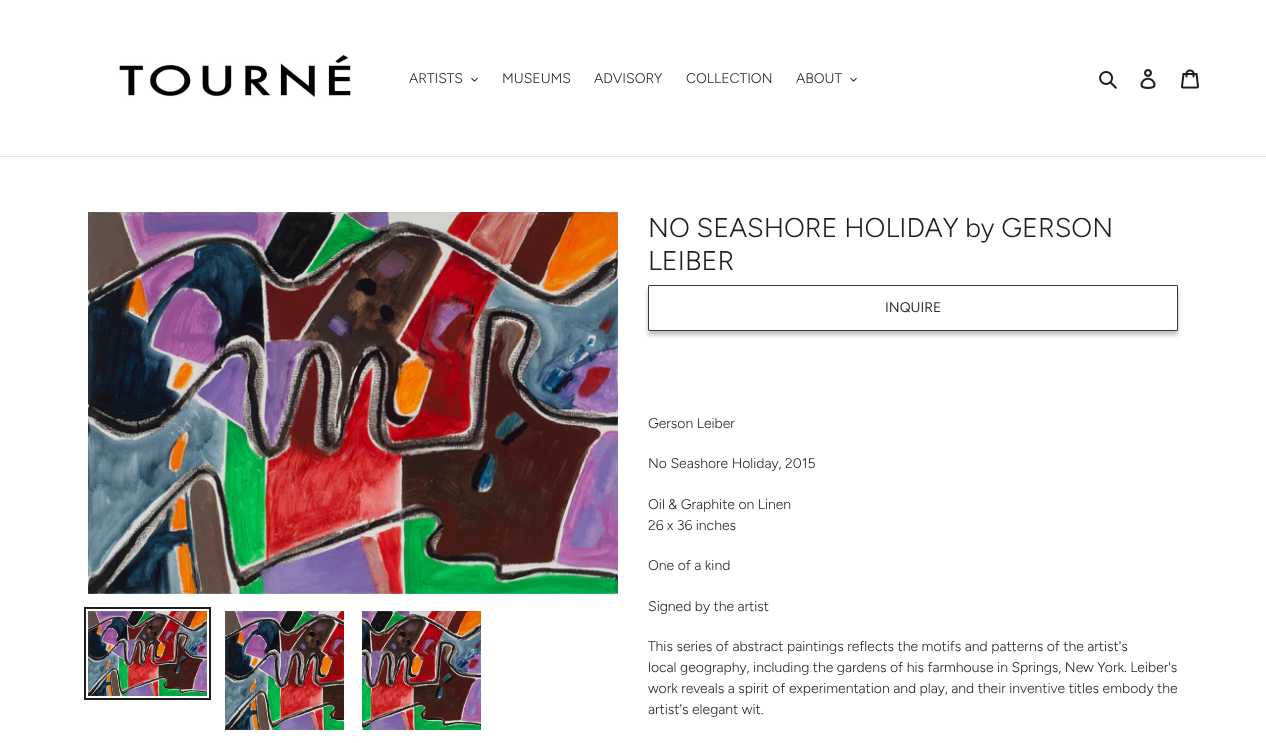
<svg xmlns="http://www.w3.org/2000/svg" width="1266" height="743">
	<defs>
		<clipPath id="clip1"><path d="M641 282H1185V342H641ZM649 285H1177C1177.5 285 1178 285.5 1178 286V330C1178 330.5 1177.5 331 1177 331H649C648.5 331 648 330.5 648 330V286C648 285.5 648.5 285 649 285Z" clip-rule="evenodd" /></clipPath>
	</defs>
	<rect width="100%" height="100%" fill="#FFFFFF" />
	<rect x="0" y="156" width="1266" height="1" fill="#E5E5E5" />
	<image x="119" y="55" width="232" height="42" href="assets/img1.png" />
	<text x="409" y="83" font-family="Figtree" font-size="14" font-weight="300" fill="#1E1E1E">ARTISTS</text>
	<image x="471" y="77" width="7" height="5" href="assets/img2.png" />
	<g font-family="Figtree" font-size="14" font-weight="300" fill="#1E1E1E">
		<text x="502" y="83">MUSEUMS</text>
		<text x="594" y="83">ADVISORY</text>
		<text x="686" y="83">COLLECTION</text>
		<text x="796" y="83">ABOUT</text>
	</g>
	<image x="850" y="77" width="7" height="5" href="assets/img2.png" />
	<image x="1099" y="71" width="18" height="18" href="assets/img3.png" />
	<image x="1140" y="69" width="16" height="20" href="assets/img4.png" />
	<image x="1181" y="69" width="18" height="20" href="assets/img5.png" />
	<image x="88" y="212" width="530" height="382" href="assets/img6.png" />
	<rect x="85" y="608" width="125" height="91" fill="none" stroke="#1E1E1E" stroke-width="2" />
	<image x="88" y="611" width="119" height="85" href="assets/img7.png" />
	<image x="225" y="611" width="119" height="119" href="assets/img8.png" />
	<image x="362" y="611" width="119" height="119" href="assets/img9.png" />
	<g font-family="Figtree" font-size="27" font-weight="300" fill="#1E1E1E">
		<text x="648" y="237">NO SEASHORE HOLIDAY by GERSON</text>
		<text x="648" y="270">LEIBER</text>
	</g>
	<g clip-path="url(#clip1)">
		<rect x="648" y="289" width="530" height="46" rx="1" fill="#000000" fill-opacity="0.25" filter="blur(2px)" />
	</g>
	<rect x="648.5" y="285.5" width="529" height="45" rx="0.5" fill="none" stroke="#383737" />
	<text x="885" y="312" font-family="Figtree" font-size="14" fill="#333232">INQUIRE</text>
	<g font-family="Figtree" font-size="14" font-weight="300" fill="#1E1E1E">
		<text x="648" y="428">Gerson Leiber</text>
		<text x="648" y="468">No Seashore Holiday, 2015</text>
		<text x="648" y="509">Oil &amp; Graphite on Linen</text>
		<text x="648" y="530">26 x 36 inches</text>
		<text x="648" y="570">One of a kind</text>
		<text x="648" y="611">Signed by the artist</text>
		<text x="648" y="651">This series of abstract paintings reflects the motifs and patterns of the artist's</text>
		<text x="648" y="672">local geography, including the gardens of his farmhouse in Springs, New York. Leiber's</text>
		<text x="648" y="693">work reveals a spirit of experimentation and play, and their inventive titles embody the</text>
		<text x="648" y="714">artist's elegant wit.</text>
	</g>
</svg>
